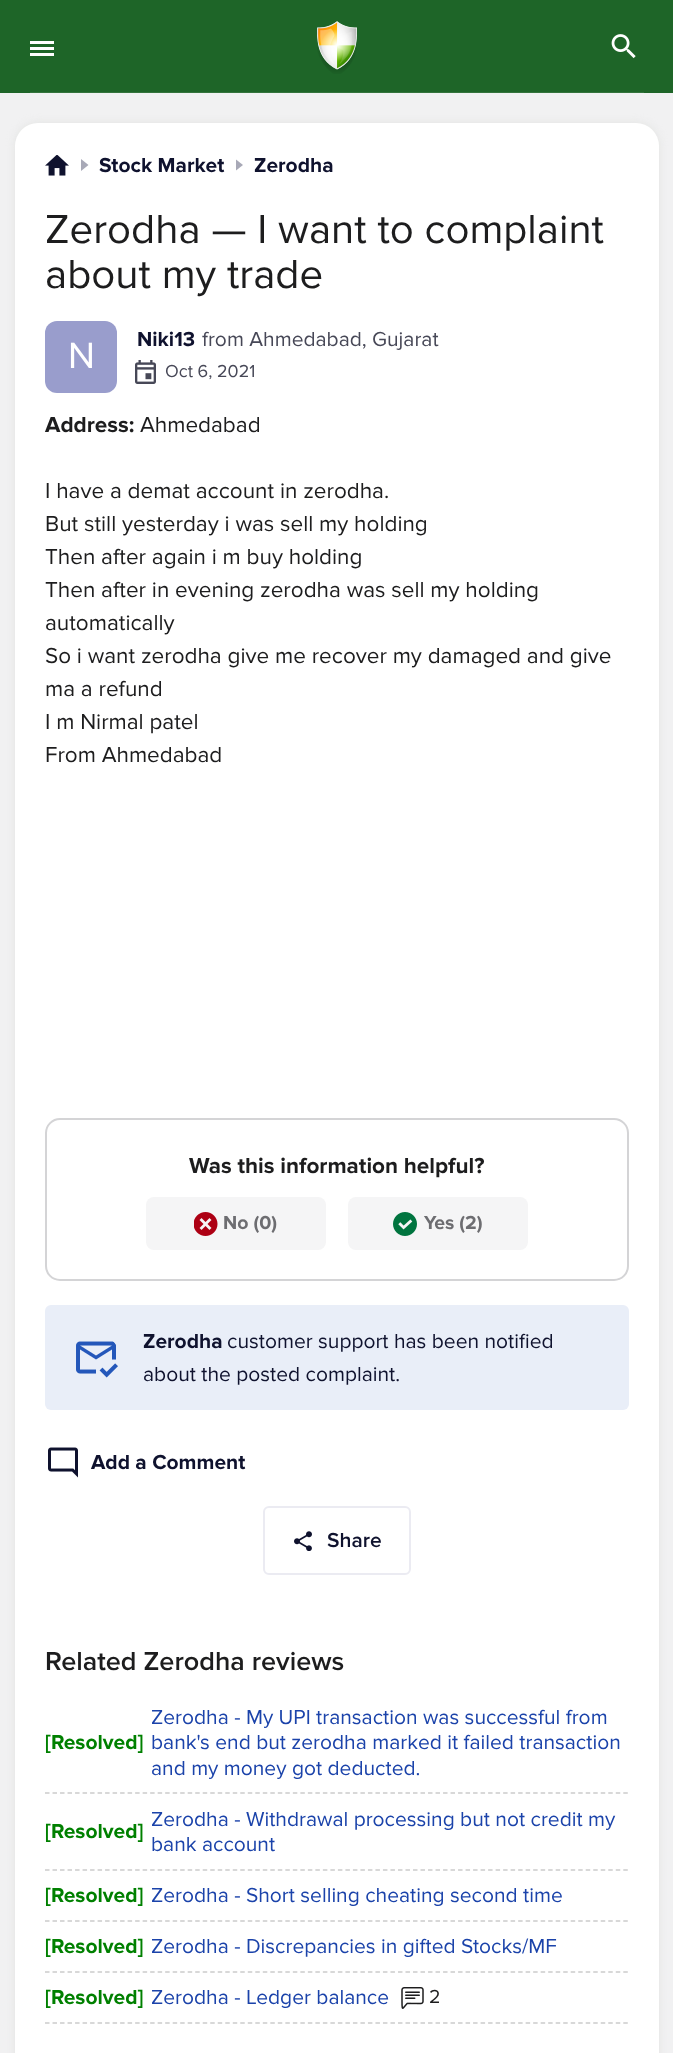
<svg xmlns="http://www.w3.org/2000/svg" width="673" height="2053">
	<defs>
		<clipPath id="clip1"><rect x="236" y="159" width="7" height="12" /></clipPath>
	</defs>
	<rect width="100%" height="100%" fill="#F1F1F2" />
	<rect x="0" y="0" width="673" height="93" fill="#1E6528" />
	<rect x="30" y="92" width="614" height="1" fill="#34743D" />
	<rect x="30" y="41" width="24" height="3" fill="#FFFFFF" />
	<rect x="30" y="47" width="24" height="3" fill="#FFFFFF" />
	<rect x="30" y="53" width="24" height="3" fill="#FFFFFF" />
	<image x="317" y="21" width="40" height="53" href="assets/img1.png" />
	<image x="611" y="34" width="25" height="25" href="assets/img2.png" />
	<rect x="15" y="123" width="644" height="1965" rx="23" fill="#E2E3E1" filter="blur(4px)" />
	<rect x="15" y="123" width="644" height="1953" rx="23" fill="#FFFFFF" />
	<image x="45" y="155" width="24" height="21" href="assets/img3.png" />
	<path d="M81 171L88.5 165L81 159Z" fill="#A8A9B7" />
	<text x="99" y="172" font-family="Proxima Nova" font-size="21" font-weight="700" fill="#0F122E">Stock Market</text>
	<g clip-path="url(#clip1)">
		<path d="M235.5 171L243 165L235.5 159Z" fill="#A8A9B7" />
	</g>
	<text x="254" y="172" font-family="Proxima Nova" font-size="21" font-weight="700" fill="#0F122E">Zerodha</text>
	<g font-family="Proxima Nova" font-size="42" fill="#1D1D1E">
		<text x="45" y="243">Zerodha — I want to complaint</text>
		<text x="45" y="288">about my trade</text>
	</g>
	<rect x="45" y="321" width="72" height="72" rx="12" fill="#999DCC" />
	<text x="68" y="368" font-family="Proxima Nova" font-size="38" fill="#FFFFFF">N</text>
	<text x="137" y="346" font-family="Proxima Nova" font-size="21" font-weight="700" fill="#0F122E">Niki13</text>
	<text x="202" y="346" font-family="Proxima Nova" font-size="21" fill="#474857">from Ahmedabad, Gujarat</text>
	<image x="135" y="360" width="21" height="24" href="assets/img4.png" />
	<text x="165" y="377" font-family="Proxima Nova" font-size="18" fill="#474857">Oct 6, 2021</text>
	<text x="45" y="432" font-family="Proxima Nova" font-size="22.5" font-weight="700" fill="#1D1D1E">Address:</text>
	<g font-family="Proxima Nova" font-size="22.5" fill="#1D1D1E">
		<text x="140" y="432">Ahmedabad</text>
		<text x="45" y="498">I have a demat account in zerodha.</text>
		<text x="45" y="531">But still yesterday i was sell my holding</text>
		<text x="45" y="564">Then after again i m buy holding</text>
		<text x="45" y="597">Then after in evening zerodha was sell my holding</text>
		<text x="45" y="630">automatically</text>
		<text x="45" y="663">So i want zerodha give me recover my damaged and give</text>
		<text x="45" y="696">ma a refund</text>
		<text x="45" y="729">I m Nirmal patel</text>
		<text x="45" y="762">From Ahmedabad</text>
	</g>
	<rect x="46" y="1119" width="582" height="161" rx="14" fill="none" stroke="#D4D4D6" stroke-width="2" />
	<text x="189" y="1173" font-family="Proxima Nova" font-size="22.5" font-weight="700" fill="#1D1D1E">Was this information helpful?</text>
	<rect x="146" y="1197" width="180" height="53" rx="8" fill="#F5F5F6" />
	<image x="194" y="1212" width="24" height="24" href="assets/img5.png" />
	<text x="223" y="1229" font-family="Proxima Nova" font-size="19.5" font-weight="700" fill="#6D6D71">No (0)</text>
	<rect x="348" y="1197" width="180" height="53" rx="8" fill="#F5F5F6" />
	<image x="393" y="1212" width="24" height="24" href="assets/img6.png" />
	<text x="424" y="1229" font-family="Proxima Nova" font-size="19.5" font-weight="700" fill="#6D6D71">Yes (2)</text>
	<rect x="45" y="1305" width="584" height="105" rx="6" fill="#E9EEF8" />
	<image x="76" y="1341" width="42" height="37" href="assets/img7.png" />
	<text x="143" y="1348" font-family="Proxima Nova" font-size="21" font-weight="700" fill="#0F122E">Zerodha</text>
	<g font-family="Proxima Nova" font-size="21" fill="#0F122E">
		<text x="227" y="1348">customer support has been notified</text>
		<text x="143" y="1381">about the posted complaint.</text>
	</g>
	<image x="48" y="1447" width="30" height="31" href="assets/img8.png" />
	<text x="91" y="1469" font-family="Proxima Nova" font-size="21" font-weight="700" fill="#0F122E">Add a Comment</text>
	<rect x="264" y="1507" width="146" height="67" rx="5" fill="none" stroke="#EBEBF2" stroke-width="2" />
	<image x="294" y="1531" width="18" height="20" href="assets/img9.png" />
	<text x="327" y="1547" font-family="Proxima Nova" font-size="21" font-weight="600" fill="#0F122E">Share</text>
	<text x="45" y="1670" font-family="Proxima Nova" font-size="27" font-weight="600" fill="#1D1D1E">Related Zerodha reviews</text>
	<path d="M45 1793H628.5" fill="none" stroke="#CCCCCC" stroke-width="1.5" stroke-dasharray="4.5 3.01" />
	<text x="45" y="1749" font-family="Proxima Nova" font-size="21" font-weight="700" fill="#008000">[Resolved]</text>
	<g font-family="Proxima Nova" font-size="21" fill="#1B43AA">
		<text x="151" y="1724">Zerodha - My UPI transaction was successful from</text>
		<text x="151" y="1749">bank's end but zerodha marked it failed transaction</text>
		<text x="151" y="1775">and my money got deducted.</text>
	</g>
	<path d="M45 1870H628.5" fill="none" stroke="#CCCCCC" stroke-width="1.5" stroke-dasharray="4.5 3.01" />
	<text x="45" y="1838" font-family="Proxima Nova" font-size="21" font-weight="700" fill="#008000">[Resolved]</text>
	<g font-family="Proxima Nova" font-size="21" fill="#1B43AA">
		<text x="151" y="1826">Zerodha - Withdrawal processing but not credit my</text>
		<text x="151" y="1851">bank account</text>
	</g>
	<path d="M45 1921H628.5" fill="none" stroke="#CCCCCC" stroke-width="1.5" stroke-dasharray="4.5 3.01" />
	<text x="45" y="1902" font-family="Proxima Nova" font-size="21" font-weight="700" fill="#008000">[Resolved]</text>
	<text x="151" y="1902" font-family="Proxima Nova" font-size="21" fill="#1B43AA">Zerodha - Short selling cheating second time</text>
	<path d="M45 1972H628.5" fill="none" stroke="#CCCCCC" stroke-width="1.5" stroke-dasharray="4.5 3.01" />
	<text x="45" y="1953" font-family="Proxima Nova" font-size="21" font-weight="700" fill="#008000">[Resolved]</text>
	<text x="151" y="1953" font-family="Proxima Nova" font-size="21" fill="#1B43AA">Zerodha - Discrepancies in gifted Stocks/MF</text>
	<path d="M45 2023H628.5" fill="none" stroke="#CCCCCC" stroke-width="1.5" stroke-dasharray="4.5 3.01" />
	<text x="45" y="2004" font-family="Proxima Nova" font-size="21" font-weight="700" fill="#008000">[Resolved]</text>
	<text x="151" y="2004" font-family="Proxima Nova" font-size="21" fill="#1B43AA">Zerodha - Ledger balance</text>
	<image x="401" y="1987" width="23" height="22" href="assets/img10.png" />
	<text x="429" y="2003" font-family="Proxima Nova" font-size="19.5" fill="#1D1D1E">2</text>
</svg>
